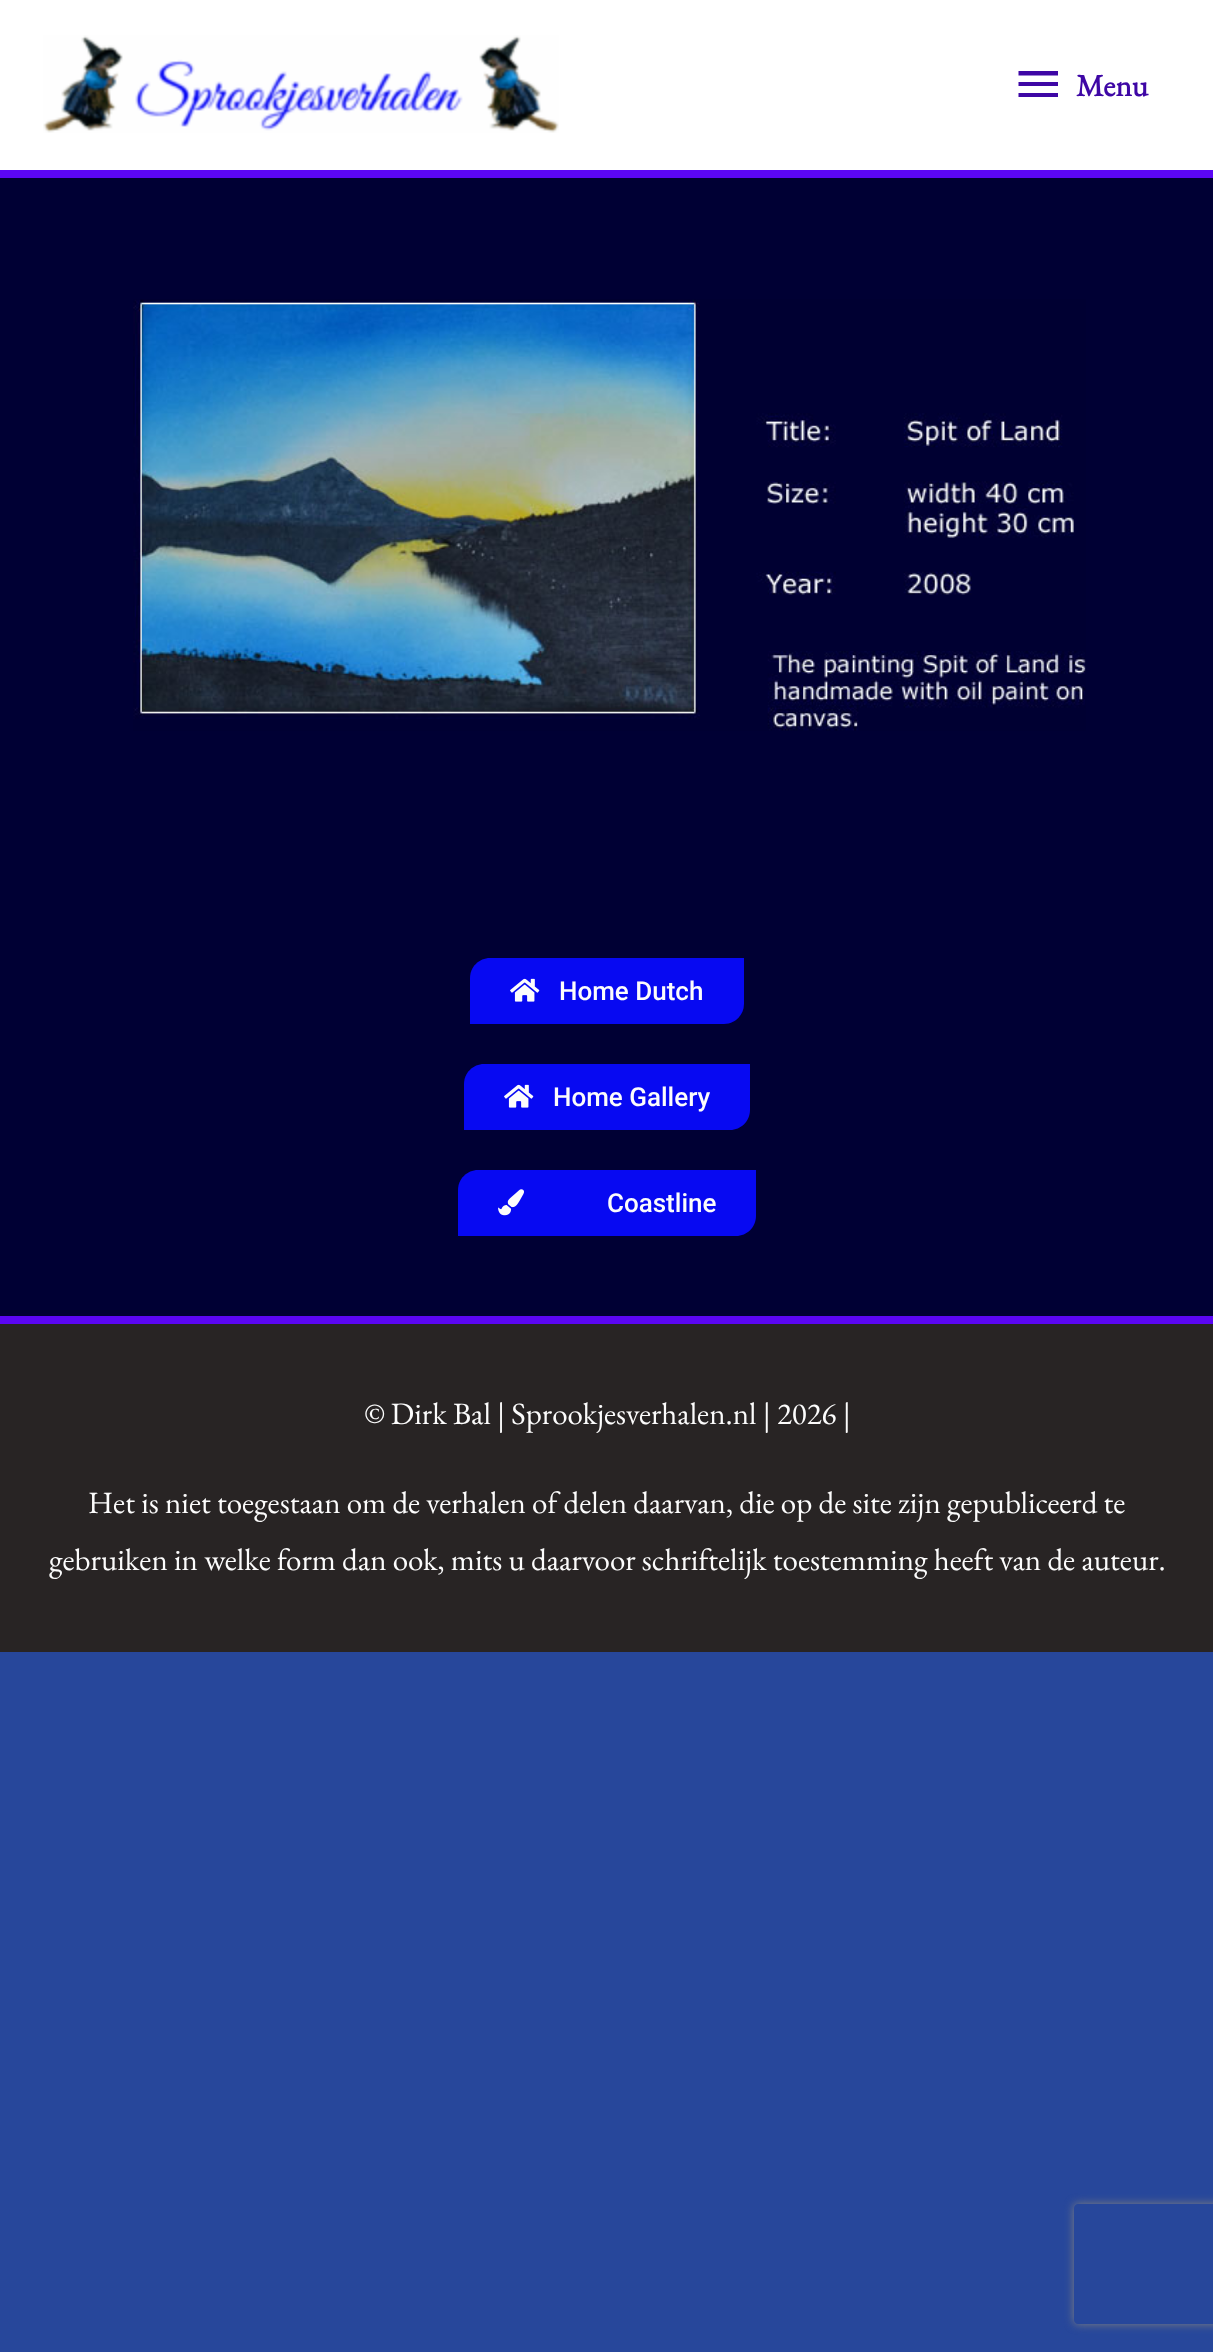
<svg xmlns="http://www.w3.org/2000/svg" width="1213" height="2352">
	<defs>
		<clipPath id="clip1"><path d="M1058 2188H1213V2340H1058ZM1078 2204H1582C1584 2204 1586 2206 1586 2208V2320C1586 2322 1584 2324 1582 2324H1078C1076 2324 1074 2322 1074 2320V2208C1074 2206 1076 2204 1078 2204Z" clip-rule="evenodd" /></clipPath>
	</defs>
	<rect width="100%" height="100%" fill="#27479B" />
	<rect x="0" y="0" width="1213" height="170" fill="#FFFFFF" />
	<rect x="0" y="170" width="1213" height="8" fill="#5B06F4" />
	<image x="43" y="35" width="516" height="98" href="assets/img1.png" />
	<path d="M1018.5 71H1058V75.5H1018.5ZM1018.5 86V82H1058V86ZM1018.5 97V93H1058V97Z" fill="#3E07A5" />
	<text x="1076" y="96" font-family="EB Garamond" font-size="31" font-weight="700" fill="#3E07A5">Menu</text>
	<rect x="0" y="178" width="1213" height="1138" fill="#000034" />
	<image x="133" y="299" width="953" height="432" href="assets/img2.png" />
	<path d="M490 958H744V1004C744 1015 735 1024 724 1024H470V978C470 967 479 958 490 958Z" fill="#0709F2" />
	<image x="510" y="978" width="30" height="24" href="assets/img3.png" />
	<text x="559" y="1000" font-family="Roboto" font-size="26" font-weight="500" fill="#FCFCFC">Home Dutch</text>
	<path d="M484 1064H750V1110C750 1121 741 1130 730 1130H464V1084C464 1073 473 1064 484 1064Z" fill="#0709F2" />
	<image x="504" y="1084" width="30" height="24" href="assets/img3.png" />
	<text x="553" y="1106" font-family="Roboto" font-size="26" font-weight="500" fill="#FCFCFC">Home Gallery</text>
	<path d="M478 1170H756V1216C756 1227 747 1236 736 1236H458V1190C458 1179 467 1170 478 1170Z" fill="#0709F2" />
	<image x="498" y="1189" width="26" height="27" href="assets/img4.png" />
	<text x="607" y="1212" font-family="Roboto" font-size="26" font-weight="500" fill="#FCFCFC">Coastline</text>
	<rect x="0" y="1316" width="1213" height="8" fill="#5B06F4" />
	<rect x="0" y="1324" width="1213" height="328" fill="#282424" />
	<g font-family="EB Garamond" font-size="31" fill="#FCFCFC">
		<text x="364" y="1424">© Dirk Bal | Sprookjesverhalen.nl | 2026 |</text>
		<text x="88" y="1513">Het is niet toegestaan om de verhalen of delen daarvan, die op de site zijn gepubliceerd te</text>
		<text x="49" y="1570">gebruiken in welke form dan ook, mits u daarvoor schriftelijk toestemming heeft van de auteur.</text>
	</g>
	<g clip-path="url(#clip1)">
		<rect x="1074" y="2204" width="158" height="120" rx="4" fill="#808080" filter="blur(5px)" />
	</g>
</svg>
